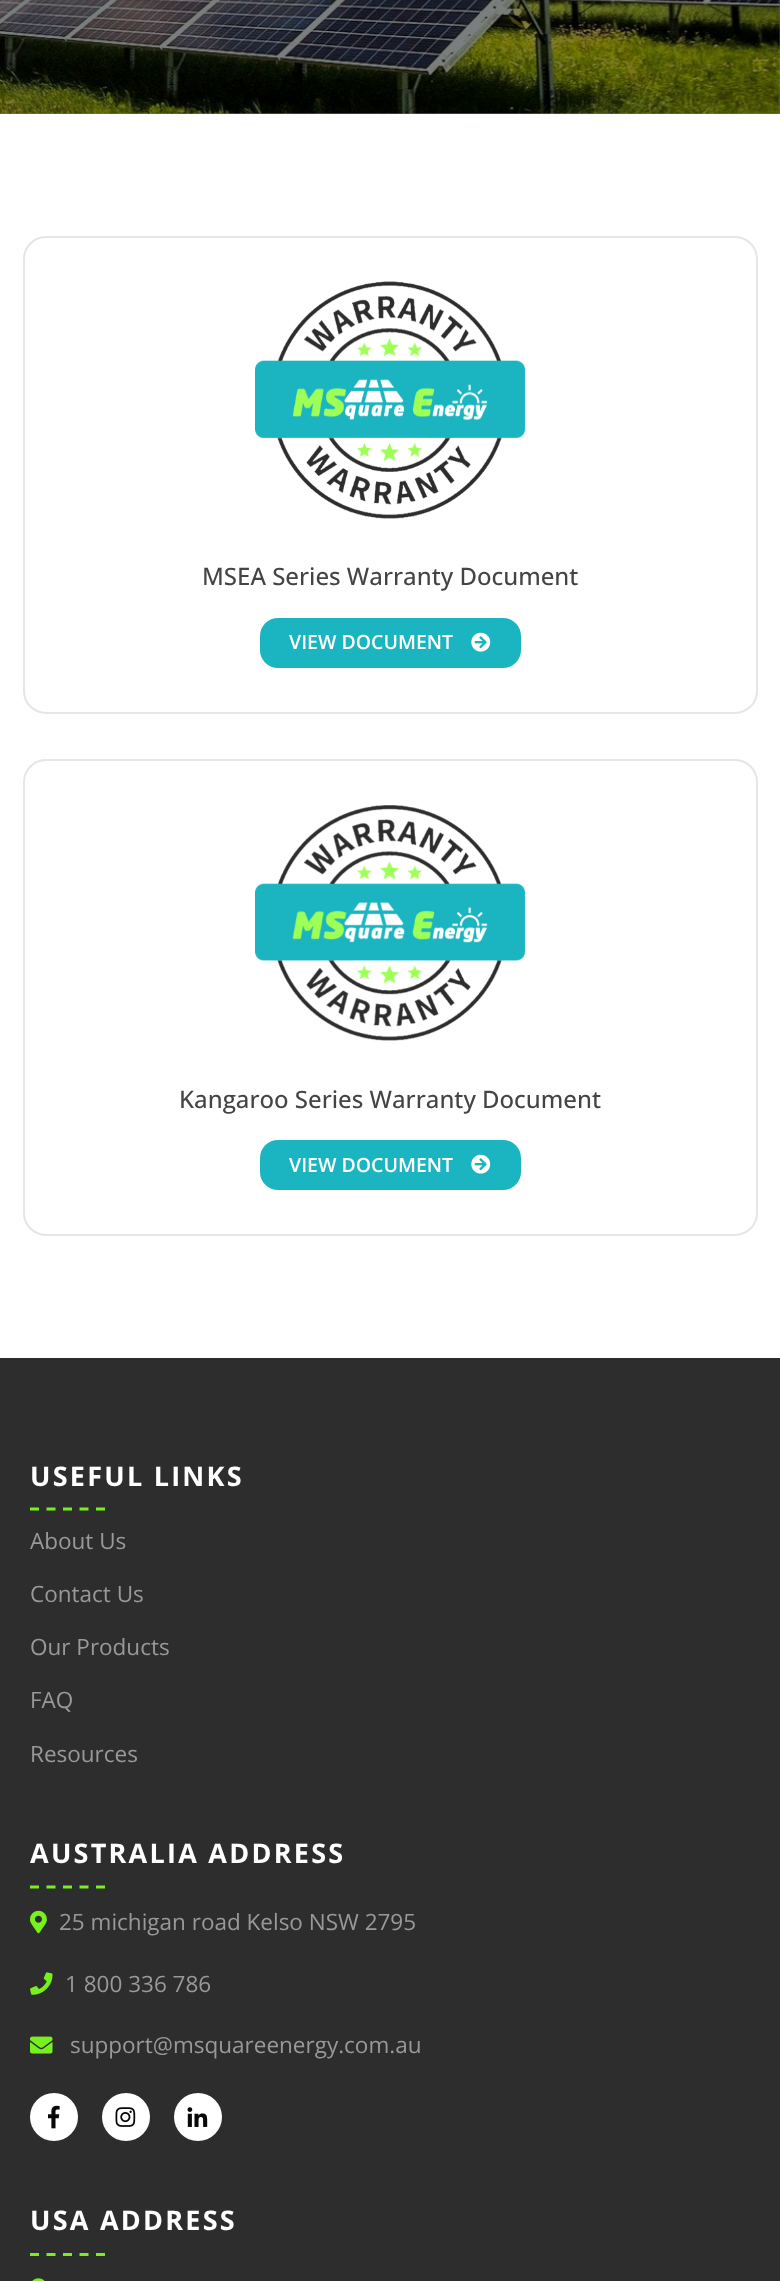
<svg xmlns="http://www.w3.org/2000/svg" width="780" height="2281">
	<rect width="100%" height="100%" fill="#FFFFFF" />
	<rect x="0" y="0" width="780" height="114" fill="#797979" />
	<image x="0" y="0" width="780" height="114" href="assets/img1.png" />
	<rect x="24" y="237" width="733" height="476" rx="22" fill="none" stroke="#E6E6E6" stroke-width="2" />
	<image x="255" y="281" width="270" height="238" href="assets/img2.png" />
	<text x="202" y="585" font-family="Open Sans" font-size="24" font-weight="500" fill="#444444">MSEA Series Warranty Document</text>
	<rect x="260" y="618" width="261" height="50" rx="18" fill="#1BB5C1" />
	<text x="289" y="649" font-family="Open Sans" font-size="19.5" font-weight="600" fill="#FFFFFF">VIEW DOCUMENT</text>
	<image x="471" y="632" width="20" height="20" href="assets/img3.png" />
	<rect x="24" y="760" width="733" height="475" rx="22" fill="none" stroke="#E6E6E6" stroke-width="2" />
	<image x="255" y="805" width="270" height="236" href="assets/img4.png" />
	<text x="179" y="1108" font-family="Open Sans" font-size="24" font-weight="500" fill="#444444">Kangaroo Series Warranty Document</text>
	<rect x="260" y="1140" width="261" height="50" rx="18" fill="#1BB5C1" />
	<text x="289" y="1172" font-family="Open Sans" font-size="19.5" font-weight="600" fill="#FFFFFF">VIEW DOCUMENT</text>
	<image x="471" y="1154" width="20" height="20" href="assets/img3.png" />
	<rect x="0" y="1358" width="780" height="923" fill="#2D2D2D" />
	<text x="30" y="1486" font-family="Open Sans" font-size="27" font-weight="700" letter-spacing="2.25" fill="#FFFFFF">USEFUL LINKS</text>
	<path d="M30 1509H105" fill="none" stroke="#77F11D" stroke-width="3" stroke-dasharray="9 7.5" />
	<g font-family="Open Sans" font-size="22.5" fill="#999999">
		<text x="30" y="1549">About Us</text>
		<text x="30" y="1602">Contact Us</text>
		<text x="30" y="1655">Our Products</text>
		<text x="30" y="1708">FAQ</text>
		<text x="30" y="1762">Resources</text>
	</g>
	<text x="30" y="1863" font-family="Open Sans" font-size="27" font-weight="700" letter-spacing="2.25" fill="#FFFFFF">AUSTRALIA ADDRESS</text>
	<path d="M30 1887H105" fill="none" stroke="#77F11D" stroke-width="3" stroke-dasharray="9 7.5" />
	<image x="30" y="1910" width="17" height="24" href="assets/img5.png" />
	<text x="59" y="1930" font-family="Open Sans" font-size="22.5" fill="#999999">25 michigan road Kelso NSW 2795</text>
	<image x="30" y="1972" width="23" height="23" href="assets/img6.png" />
	<text x="65" y="1992" font-family="Open Sans" font-size="22.5" fill="#999999">1 800 336 786</text>
	<image x="30" y="2036" width="23" height="18" href="assets/img7.png" />
	<text x="70" y="2053" font-family="Open Sans" font-size="22.5" fill="#999999">support@msquareenergy.com.au</text>
	<circle cx="54" cy="2117" r="24" fill="#FFFFFF" />
	<image x="48" y="2105" width="12" height="24" href="assets/img8.png" />
	<circle cx="126" cy="2117" r="24" fill="#FFFFFF" />
	<image x="115" y="2107" width="21" height="20" href="assets/img9.png" />
	<circle cx="198" cy="2117" r="24" fill="#FFFFFF" />
	<image x="187" y="2107" width="21" height="20" href="assets/img10.png" />
	<text x="30" y="2230" font-family="Open Sans" font-size="27" font-weight="700" letter-spacing="2.25" fill="#FFFFFF">USA ADDRESS</text>
	<path d="M30 2254.5H105" fill="none" stroke="#77F11D" stroke-width="3" stroke-dasharray="9 7.5" />
	<image x="32" y="2278" width="13" height="3" href="assets/img11.png" />
</svg>
